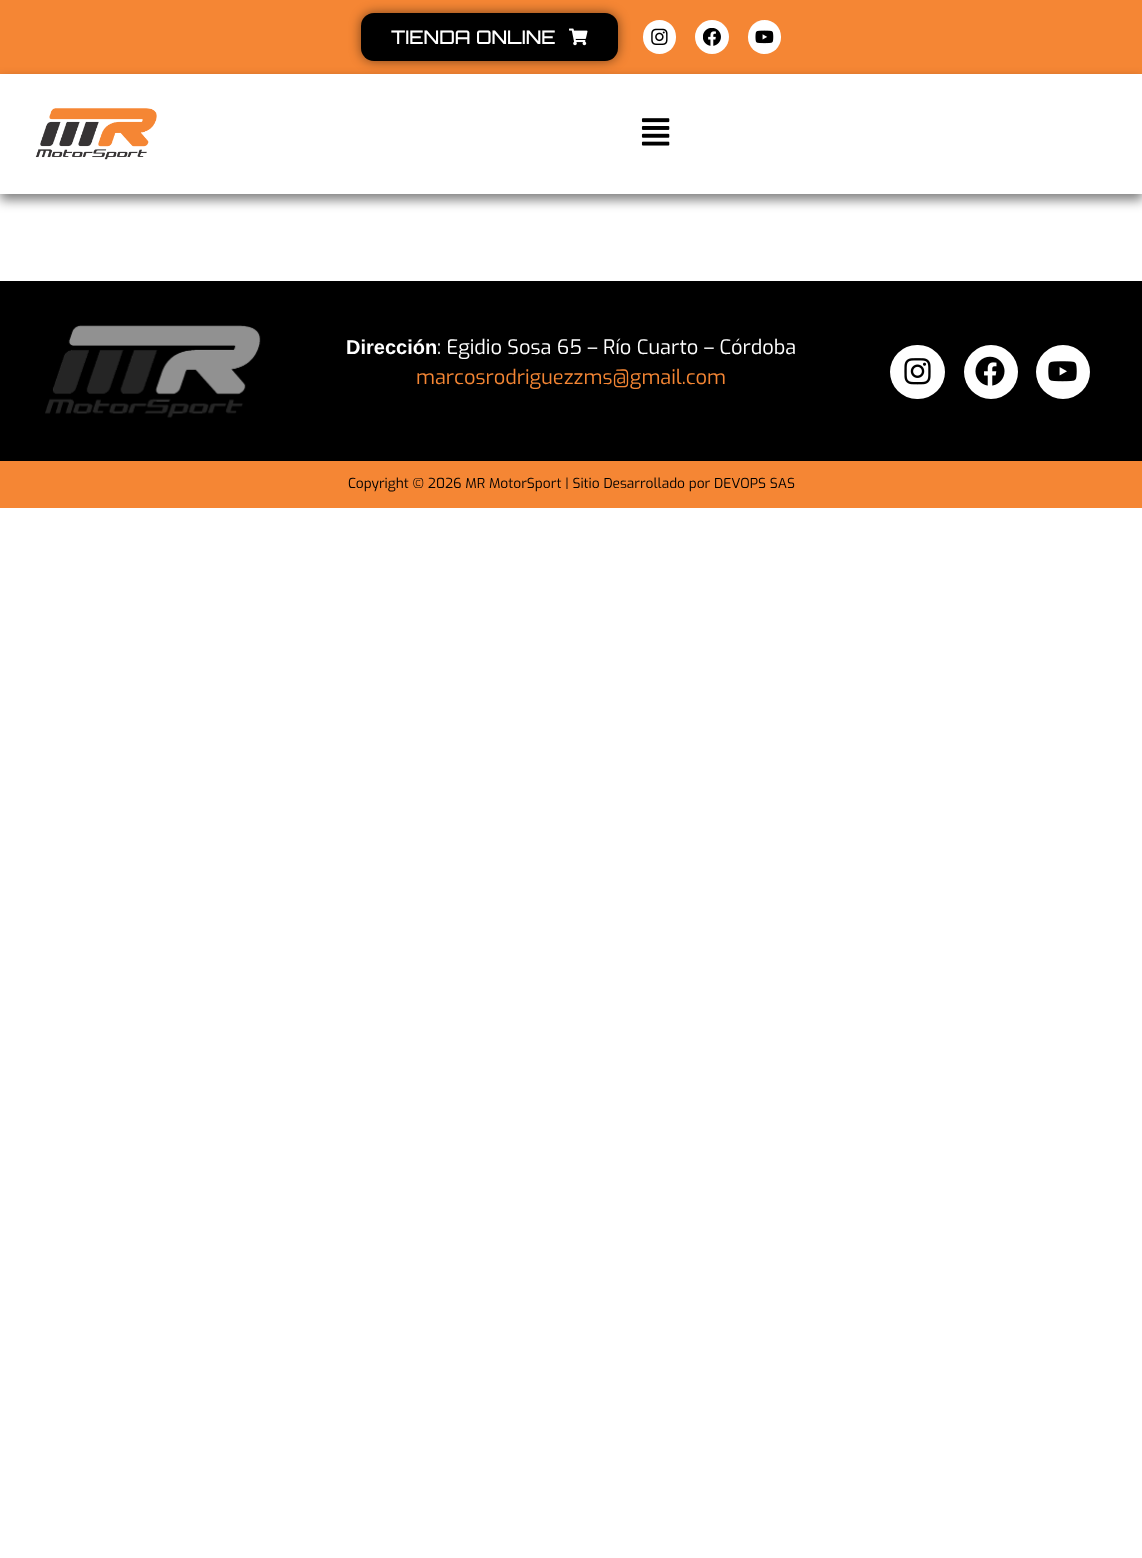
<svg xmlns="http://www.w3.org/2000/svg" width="1142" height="1558">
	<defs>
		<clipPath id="clip1"><path d="M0 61H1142V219H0ZM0 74H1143V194H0Z" clip-rule="evenodd" /></clipPath>
	</defs>
	<rect width="100%" height="100%" fill="#FFFFFF" />
	<rect x="0" y="0" width="1142" height="74" fill="#F58634" />
	<rect x="361" y="13" width="257" height="48" rx="13" fill="#000000" fill-opacity="0.5" filter="blur(6px)" />
	<rect x="361" y="13" width="257" height="48" rx="13" fill="#000000" />
	<text x="391" y="44" font-family="Orbitron" font-size="18.75" font-weight="500" fill="#FFFFFF">TIENDA ONLINE</text>
	<image x="569" y="28" width="19" height="18" href="assets/img1.png" />
	<rect x="643" y="20" width="33" height="34" rx="16.5" fill="#FFFFFF" />
	<image x="651" y="28" width="17" height="17" href="assets/img2.png" />
	<circle cx="712" cy="37" r="17" fill="#FFFFFF" />
	<image x="703" y="28" width="18" height="18" href="assets/img3.png" />
	<rect x="748" y="20" width="33" height="34" rx="16.5" fill="#FFFFFF" />
	<image x="755" y="30" width="19" height="14" href="assets/img4.png" />
	<g clip-path="url(#clip1)">
		<rect x="0" y="80" width="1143" height="120" fill="#000000" fill-opacity="0.5" filter="blur(6px)" />
	</g>
	<image x="35" y="108" width="122" height="52" href="assets/img5.png" />
	<image x="641" y="118" width="29" height="28" href="assets/img6.png" />
	<rect x="0" y="281" width="1142" height="180" fill="#000000" />
	<image x="45" y="325" width="216" height="93" href="assets/img7.png" />
	<text x="346" y="354" font-family="Liberation Sans" font-size="20" font-weight="700" fill="#FFFFFF">Dirección</text>
	<text x="437" y="354" font-family="Exo" font-size="20" fill="#FFFFFF">: Egidio Sosa 65 – Río Cuarto – Córdoba</text>
	<text x="416" y="384" font-family="Exo" font-size="20" fill="#F58634">marcosrodriguezzms@gmail.com</text>
	<rect x="890" y="345" width="55" height="54" rx="27" fill="#FFFFFF" />
	<image x="904" y="358" width="27" height="27" href="assets/img8.png" />
	<circle cx="991" cy="372" r="27" fill="#FFFFFF" />
	<image x="975" y="356" width="30" height="30" href="assets/img9.png" />
	<circle cx="1063" cy="372" r="27" fill="#FFFFFF" />
	<image x="1048" y="361" width="29" height="21" href="assets/img10.png" />
	<rect x="0" y="461" width="1142" height="47" fill="#F58634" />
	<text x="348" y="488" font-family="Exo" font-size="13.75" fill="#000000">Copyright © 2026 MR MotorSport | Sitio Desarrollado por DEVOPS SAS</text>
</svg>
